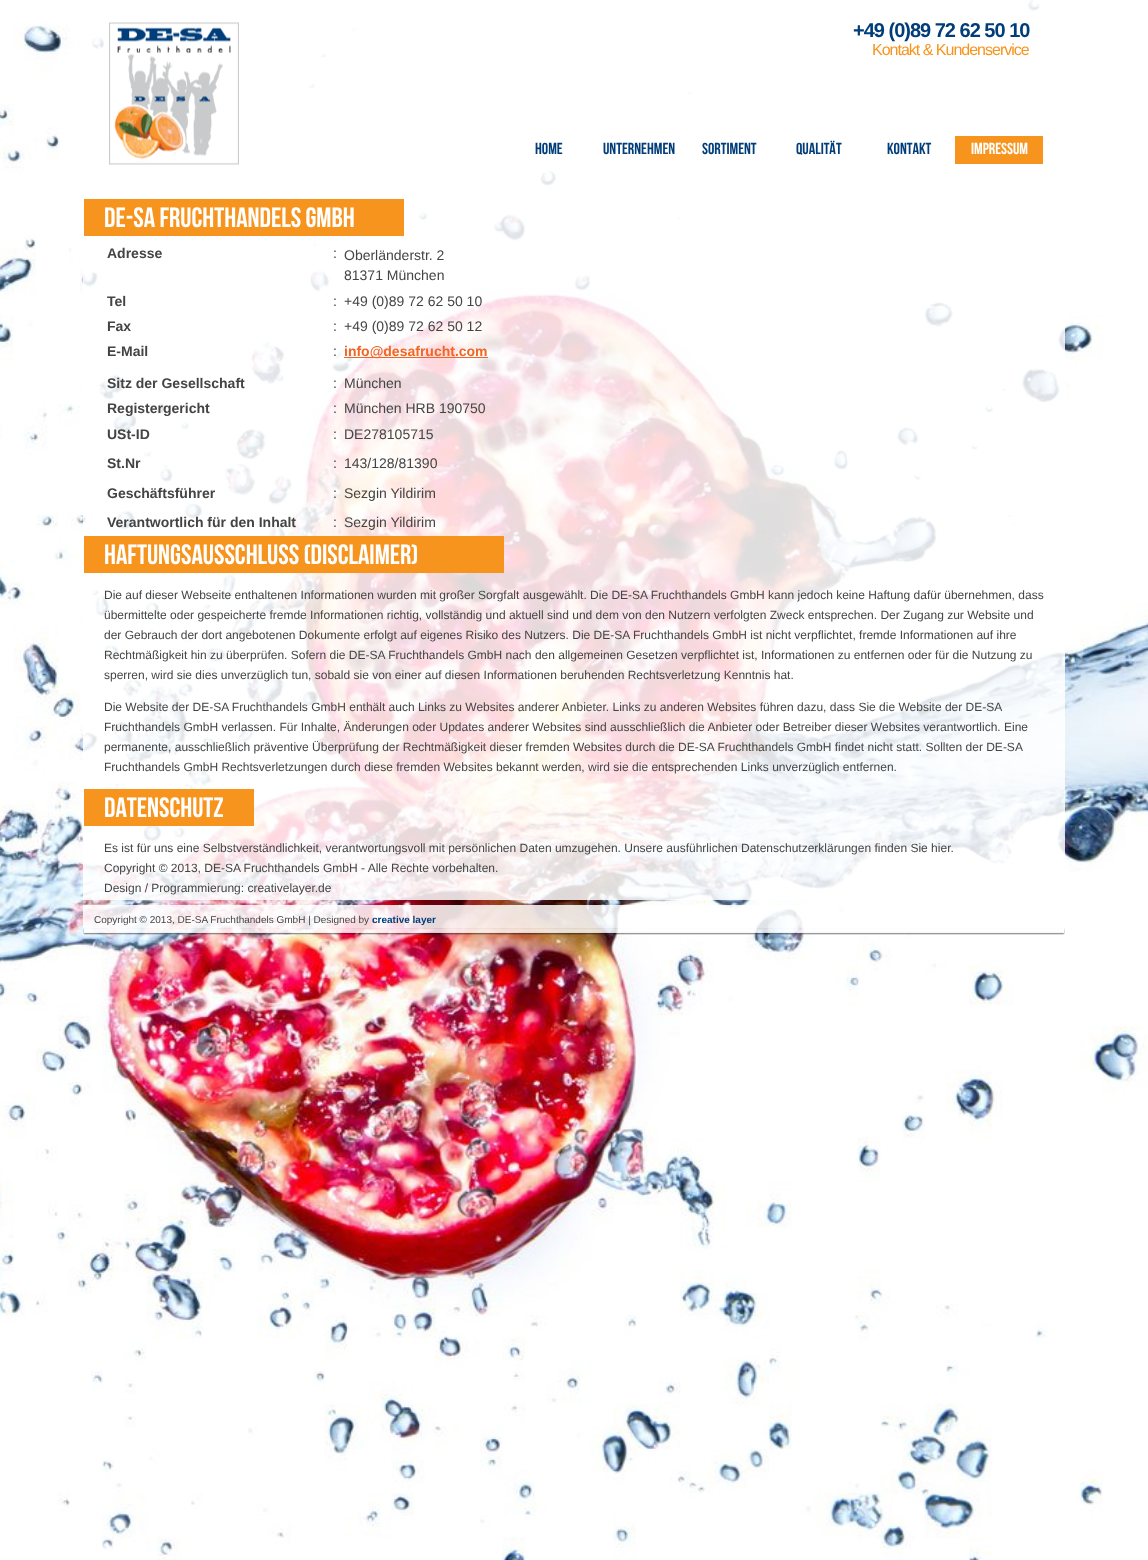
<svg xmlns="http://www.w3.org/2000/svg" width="1148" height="1560">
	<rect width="100%" height="100%" fill="#FFFFFF" />
	<image x="0" y="0" width="1148" height="1560" href="assets/img1.png" />
	<rect x="83" y="0" width="982" height="900" fill="#FFFFFF" fill-opacity="0.85" />
	<image x="109" y="22" width="130" height="143" href="assets/img2.png" />
	<text x="853" y="37" font-family="Liberation Sans" font-size="20" font-weight="700" letter-spacing="-1" fill="#003D79">+49 (0)89 72 62 50 10</text>
	<text x="872" y="55" font-family="Liberation Sans" font-size="16" letter-spacing="-1" fill="#F7941D">Kontakt &amp; Kundenservice</text>
	<g font-family="Bebas Neue" font-size="16" fill="#003D79">
		<text x="535" y="154">Home</text>
		<text x="603" y="154">Unternehmen</text>
		<text x="702" y="154">Sortiment</text>
		<text x="796" y="154">Qualität</text>
		<text x="887" y="154">Kontakt</text>
	</g>
	<rect x="955" y="136" width="88" height="28" fill="#F7941D" />
	<text x="971" y="154" font-family="Bebas Neue" font-size="16" fill="#FFFFFF">Impressum</text>
	<rect x="84" y="199" width="320" height="37" fill="#F7941D" />
	<text x="104" y="227" font-family="Bebas Neue" font-size="28" fill="#FFFFFF">DE-SA Fruchthandels GmbH</text>
	<text x="107" y="258" font-family="Liberation Sans" font-size="14" font-weight="700" fill="#444444">Adresse</text>
	<g font-family="Liberation Sans" font-size="14" fill="#444444">
		<text x="333" y="258">:</text>
		<text x="344" y="260">Oberländerstr. 2</text>
		<text x="344" y="280">81371 München</text>
	</g>
	<text x="107" y="306" font-family="Liberation Sans" font-size="14" font-weight="700" fill="#444444">Tel</text>
	<g font-family="Liberation Sans" font-size="14" fill="#444444">
		<text x="333" y="306">:</text>
		<text x="344" y="306">+49 (0)89 72 62 50 10</text>
	</g>
	<text x="107" y="331" font-family="Liberation Sans" font-size="14" font-weight="700" fill="#444444">Fax</text>
	<g font-family="Liberation Sans" font-size="14" fill="#444444">
		<text x="333" y="331">:</text>
		<text x="344" y="331">+49 (0)89 72 62 50 12</text>
	</g>
	<text x="107" y="356" font-family="Liberation Sans" font-size="14" font-weight="700" fill="#444444">E-Mail</text>
	<text x="333" y="356" font-family="Liberation Sans" font-size="14" fill="#444444">:</text>
	<rect x="344" y="357" width="144" height="1" fill="#F26522" />
	<text x="344" y="356" font-family="Liberation Sans" font-size="14" font-weight="700" fill="#F26522">info@desafrucht.com</text>
	<text x="107" y="388" font-family="Liberation Sans" font-size="14" font-weight="700" fill="#444444">Sitz der Gesellschaft</text>
	<g font-family="Liberation Sans" font-size="14" fill="#444444">
		<text x="333" y="388">:</text>
		<text x="344" y="388">München</text>
	</g>
	<text x="107" y="413" font-family="Liberation Sans" font-size="14" font-weight="700" fill="#444444">Registergericht</text>
	<g font-family="Liberation Sans" font-size="14" fill="#444444">
		<text x="333" y="413">:</text>
		<text x="344" y="413">München HRB 190750</text>
	</g>
	<text x="107" y="439" font-family="Liberation Sans" font-size="14" font-weight="700" fill="#444444">USt-ID</text>
	<g font-family="Liberation Sans" font-size="14" fill="#444444">
		<text x="333" y="439">:</text>
		<text x="344" y="439">DE278105715</text>
	</g>
	<text x="107" y="468" font-family="Liberation Sans" font-size="14" font-weight="700" fill="#444444">St.Nr</text>
	<g font-family="Liberation Sans" font-size="14" fill="#444444">
		<text x="333" y="468">:</text>
		<text x="344" y="468">143/128/81390</text>
	</g>
	<text x="107" y="498" font-family="Liberation Sans" font-size="14" font-weight="700" fill="#444444">Geschäftsführer</text>
	<g font-family="Liberation Sans" font-size="14" fill="#444444">
		<text x="333" y="498">:</text>
		<text x="344" y="498">Sezgin Yildirim</text>
	</g>
	<text x="107" y="527" font-family="Liberation Sans" font-size="14" font-weight="700" fill="#444444">Verantwortlich für den Inhalt</text>
	<g font-family="Liberation Sans" font-size="14" fill="#444444">
		<text x="333" y="527">:</text>
		<text x="344" y="527">Sezgin Yildirim</text>
	</g>
	<rect x="84" y="536" width="420" height="37" fill="#F7941D" />
	<text x="104" y="564" font-family="Bebas Neue" font-size="28" fill="#FFFFFF">Haftungsausschluss (Disclaimer)</text>
	<g font-family="Liberation Sans" font-size="12" fill="#444444">
		<text x="104" y="599">Die auf dieser Webseite enthaltenen Informationen wurden mit großer Sorgfalt ausgewählt. Die DE-SA Fruchthandels GmbH kann jedoch keine Haftung dafür übernehmen, dass</text>
		<text x="104" y="619">übermittelte oder gespeicherte fremde Informationen richtig, vollständig und aktuell sind und dem von den Nutzern verfolgten Zweck entsprechen. Der Zugang zur Website und</text>
		<text x="104" y="639">der Gebrauch der dort angebotenen Dokumente erfolgt auf eigenes Risiko des Nutzers. Die DE-SA Fruchthandels GmbH ist nicht verpflichtet, fremde Informationen auf ihre</text>
		<text x="104" y="659">Rechtmäßigkeit hin zu überprüfen. Sofern die DE-SA Fruchthandels GmbH nach den allgemeinen Gesetzen verpflichtet ist, Informationen zu entfernen oder für die Nutzung zu</text>
		<text x="104" y="679">sperren, wird sie dies unverzüglich tun, sobald sie von einer auf diesen Informationen beruhenden Rechtsverletzung Kenntnis hat.</text>
		<text x="104" y="711">Die Website der DE-SA Fruchthandels GmbH enthält auch Links zu Websites anderer Anbieter. Links zu anderen Websites führen dazu, dass Sie die Website der DE-SA</text>
		<text x="104" y="731">Fruchthandels GmbH verlassen. Für Inhalte, Änderungen oder Updates anderer Websites sind ausschließlich die Anbieter oder Betreiber dieser Websites verantwortlich. Eine</text>
		<text x="104" y="751">permanente, ausschließlich präventive Überprüfung der Rechtmäßigkeit dieser fremden Websites durch die DE-SA Fruchthandels GmbH findet nicht statt. Sollten der DE-SA</text>
		<text x="104" y="771">Fruchthandels GmbH Rechtsverletzungen durch diese fremden Websites bekannt werden, wird sie die entsprechenden Links unverzüglich entfernen.</text>
	</g>
	<rect x="84" y="789" width="170" height="37" fill="#F7941D" />
	<text x="104" y="817" font-family="Bebas Neue" font-size="28" fill="#FFFFFF">Datenschutz</text>
	<g font-family="Liberation Sans" font-size="12" fill="#444444">
		<text x="104" y="852">Es ist für uns eine Selbstverständlichkeit, verantwortungsvoll mit persönlichen Daten umzugehen. Unsere ausführlichen Datenschutzerklärungen finden Sie hier.</text>
		<text x="104" y="872">Copyright © 2013, DE-SA Fruchthandels GmbH - Alle Rechte vorbehalten.</text>
		<text x="104" y="892">Design / Programmierung: creativelayer.de</text>
	</g>
	<rect x="83" y="905" width="731" height="23" fill="#FFFFFF" fill-opacity="0.85" />
	<text x="94" y="923" font-family="Liberation Sans" font-size="10" fill="#444444">Copyright © 2013, DE-SA Fruchthandels GmbH | Designed by</text>
	<text x="372" y="923" font-family="Liberation Sans" font-size="10" font-weight="700" fill="#003D79">creative layer</text>
	<image x="83" y="928" width="982" height="7" href="assets/img3.png" />
</svg>
